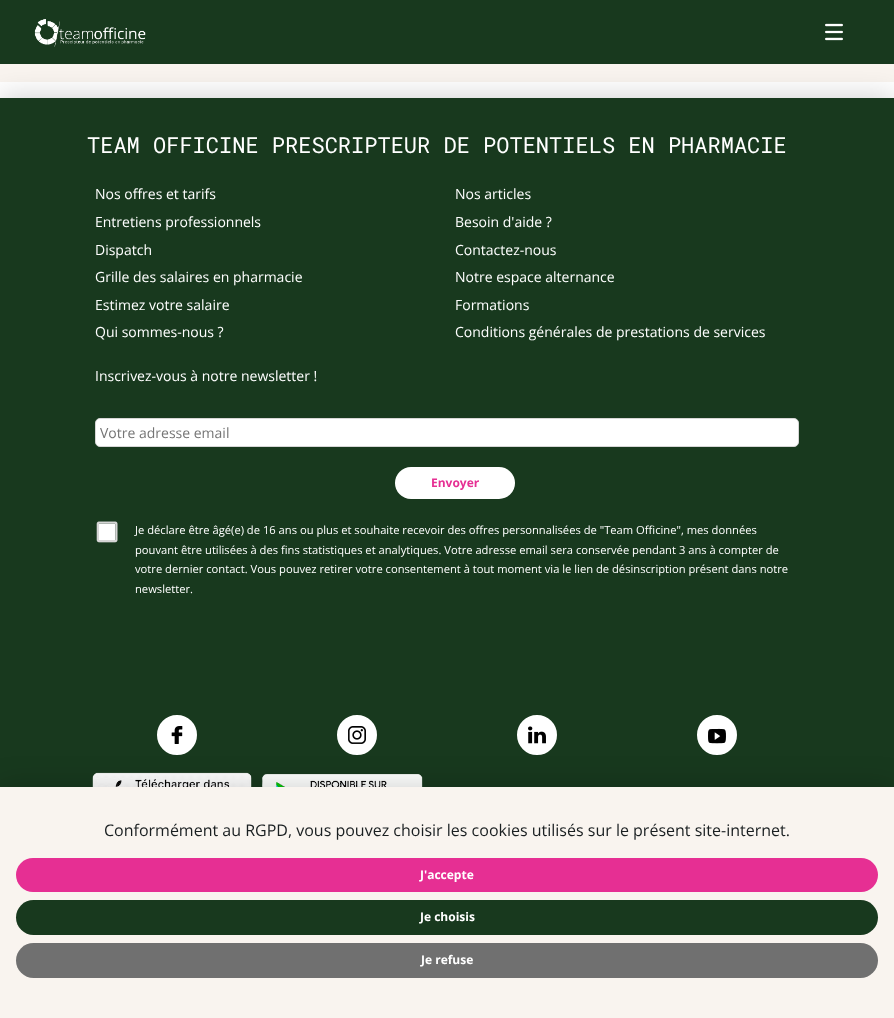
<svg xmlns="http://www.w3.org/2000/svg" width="894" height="1018">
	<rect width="100%" height="100%" fill="#F9F4EF" />
	<rect x="0" y="82" width="894" height="16" fill="#FFFFFF" />
	<rect x="0" y="98" width="894" height="890" fill="#000000" fill-opacity="0.2" filter="blur(15px)" />
	<rect x="0" y="0" width="894" height="64" fill="#18391E" />
	<image x="34" y="19" width="112" height="28" href="assets/img1.png" />
	<image x="825" y="23" width="18" height="18" href="assets/img2.png" />
	<rect x="0" y="98" width="894" height="689" fill="#18391E" />
	<text x="87" y="153" font-family="Roboto Mono" font-size="22" fill="#FFFFFF">TEAM OFFICINE PRESCRIPTEUR DE POTENTIELS EN PHARMACIE</text>
	<g font-family="Open Sans" font-size="14" fill="#FFFFFF">
		<text x="95" y="199">Nos offres et tarifs</text>
		<text x="95" y="227">Entretiens professionnels</text>
		<text x="95" y="255">Dispatch</text>
		<text x="95" y="282">Grille des salaires en pharmacie</text>
		<text x="95" y="310">Estimez votre salaire</text>
		<text x="95" y="337">Qui sommes-nous ?</text>
		<text x="455" y="199">Nos articles</text>
		<text x="455" y="227">Besoin d'aide ?</text>
		<text x="455" y="255">Contactez-nous</text>
		<text x="455" y="282">Notre espace alternance</text>
		<text x="455" y="310">Formations</text>
		<text x="455" y="337">Conditions générales de prestations de services</text>
		<text x="95" y="381">Inscrivez-vous à notre newsletter !</text>
	</g>
	<rect x="95.5" y="418.5" width="703" height="28" rx="4.5" fill="#FFFFFF" stroke="#D6D6D6" />
	<text x="100" y="438" font-family="Open Sans" font-size="14" fill="#757575">Votre adresse email</text>
	<rect x="395" y="467" width="120" height="32" rx="16" fill="#FFFFFF" />
	<text x="431" y="487" font-family="Open Sans" font-size="12" font-weight="700" fill="#E62F93">Envoyer</text>
	<image x="96" y="521" width="22" height="22" href="assets/img3.png" />
	<g font-family="Open Sans" font-size="11.2" fill="#FFFFFF">
		<text x="135" y="534">Je déclare être âgé(e) de 16 ans ou plus et souhaite recevoir des offres personnalisées de "Team Officine", mes données</text>
		<text x="135" y="554">pouvant être utilisées à des fins statistiques et analytiques. Votre adresse email sera conservée pendant 3 ans à compter de</text>
		<text x="135" y="573">votre dernier contact. Vous pouvez retirer votre consentement à tout moment via le lien de désinscription présent dans notre</text>
		<text x="135" y="593">newsletter.</text>
	</g>
	<circle cx="177" cy="735" r="19" fill="#FFFFFF" stroke="#FFFFFF" stroke-width="2" />
	<image x="171" y="726" width="12" height="18" href="assets/img4.png" />
	<circle cx="357" cy="735" r="19" fill="#FFFFFF" stroke="#FFFFFF" stroke-width="2" />
	<image x="348" y="726" width="18" height="18" href="assets/img5.png" />
	<circle cx="537" cy="735" r="19" fill="#FFFFFF" stroke="#FFFFFF" stroke-width="2" />
	<image x="528" y="726" width="18" height="18" href="assets/img6.png" />
	<circle cx="717" cy="735" r="19" fill="#FFFFFF" stroke="#FFFFFF" stroke-width="2" />
	<image x="708" y="728" width="18" height="16" href="assets/img7.png" />
	<image x="92" y="772" width="160" height="15" href="assets/img8.png" />
	<image x="262" y="774" width="161" height="13" href="assets/img9.png" />
	<rect x="0" y="787" width="894" height="231" fill="#000000" fill-opacity="0.2" filter="blur(15px)" />
	<rect x="0" y="787" width="894" height="231" fill="#F9F4EF" />
	<text x="104" y="836" font-family="Open Sans" font-size="16" fill="#1A1F21">Conformément au RGPD, vous pouvez choisir les cookies utilisés sur le présent site-internet.</text>
	<rect x="16" y="858" width="862" height="34" rx="17" fill="#E62F93" />
	<text x="420" y="879" font-family="Open Sans" font-size="12" font-weight="700" fill="#FFFFFF">J'accepte</text>
	<rect x="16" y="900" width="862" height="35" rx="17.5" fill="#18391E" />
	<text x="420" y="921" font-family="Open Sans" font-size="12" font-weight="700" fill="#FFFFFF">Je choisis</text>
	<rect x="16" y="943" width="862" height="35" rx="17.5" fill="#707070" />
	<text x="421" y="964" font-family="Open Sans" font-size="12" font-weight="700" fill="#FFFFFF">Je refuse</text>
</svg>
